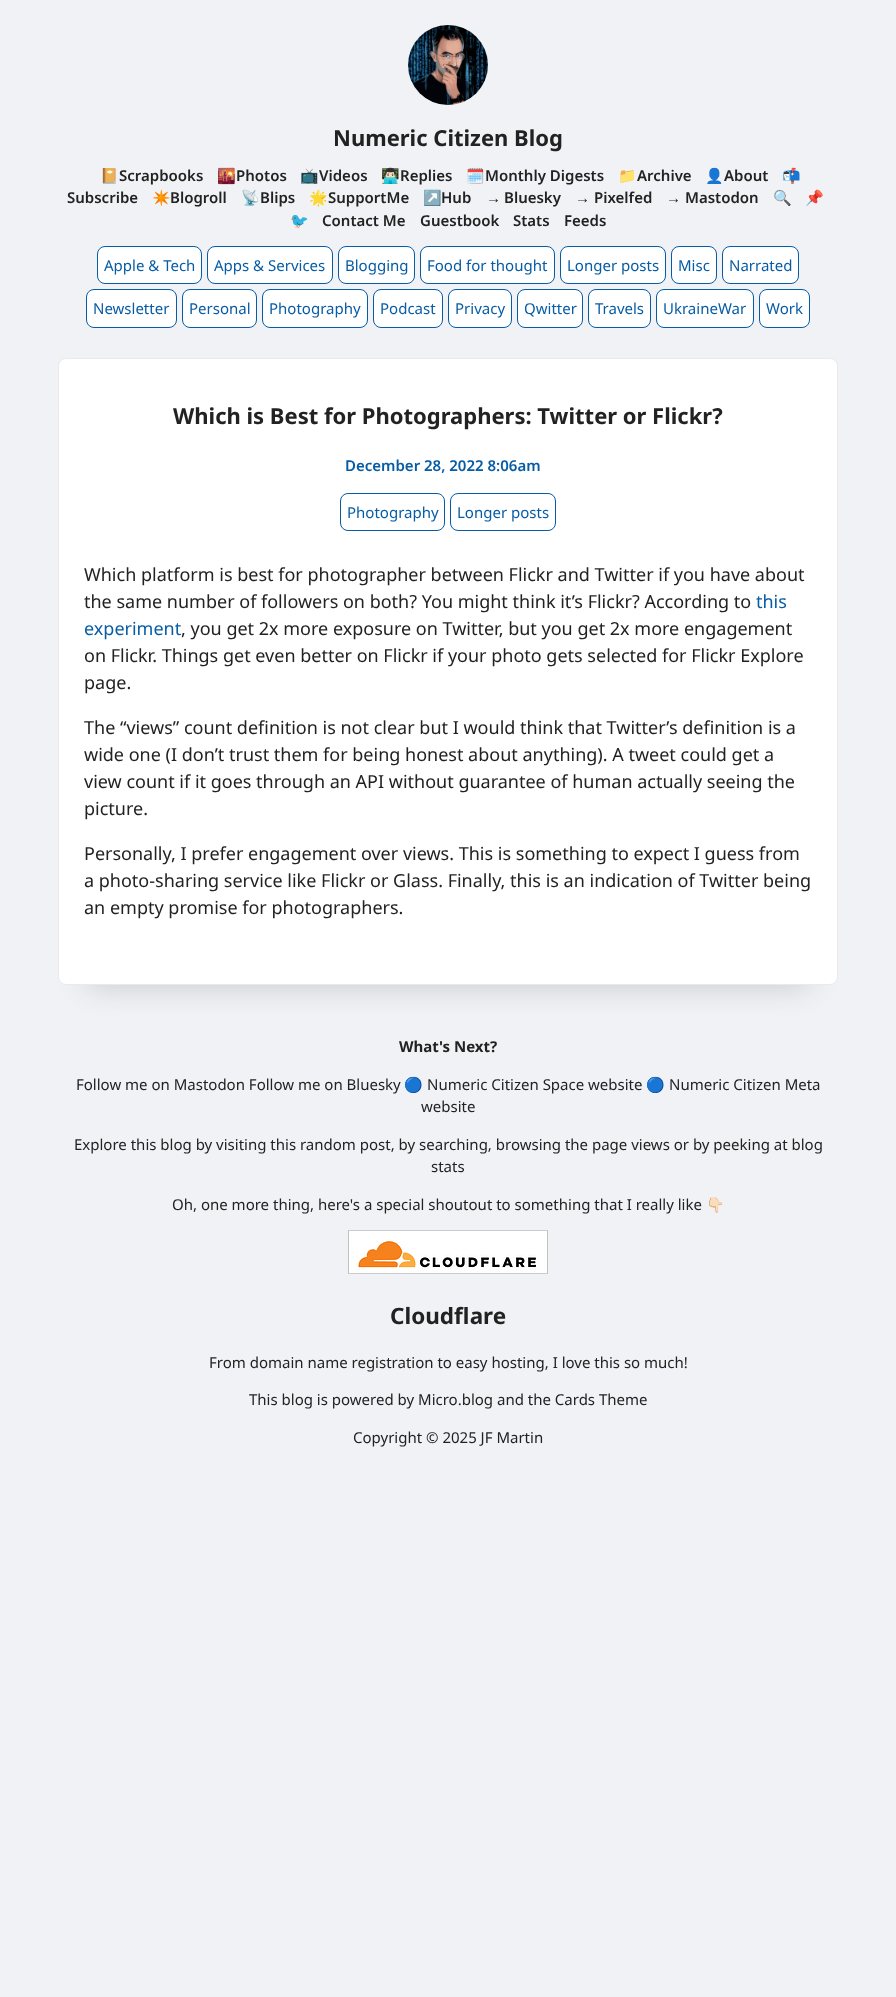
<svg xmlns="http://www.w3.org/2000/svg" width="896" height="1997">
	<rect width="100%" height="100%" fill="#F0F2F5" />
	<image x="408" y="25" width="80" height="80" href="assets/img1.png" />
	<text x="333" y="146" font-family="Noto Sans" font-size="22" font-weight="700" fill="#222222">Numeric Citizen Blog</text>
	<text x="100" y="181" font-family="Noto Color Emoji" font-size="15" fill="#222222">📔</text>
	<text x="119" y="181" font-family="Noto Sans" font-size="15" font-weight="600" fill="#222222">Scrapbooks</text>
	<text x="217" y="181" font-family="Noto Color Emoji" font-size="15" fill="#222222">🌇</text>
	<text x="236" y="181" font-family="Noto Sans" font-size="15" font-weight="600" fill="#222222">Photos</text>
	<text x="300" y="181" font-family="Noto Color Emoji" font-size="15" fill="#222222">📺</text>
	<text x="319" y="181" font-family="Noto Sans" font-size="15" font-weight="600" fill="#222222">Videos</text>
	<text x="381" y="181" font-family="Noto Color Emoji" font-size="15" fill="#222222">👨🏻‍💻</text>
	<text x="400" y="181" font-family="Noto Sans" font-size="15" font-weight="600" fill="#222222">Replies</text>
	<text x="466" y="181" font-family="Noto Color Emoji" font-size="15" fill="#222222">🗓️</text>
	<text x="485" y="181" font-family="Noto Sans" font-size="15" font-weight="600" fill="#222222">Monthly Digests</text>
	<text x="618" y="181" font-family="Noto Color Emoji" font-size="15" fill="#222222">📁</text>
	<text x="637" y="181" font-family="Noto Sans" font-size="15" font-weight="600" fill="#222222">Archive</text>
	<text x="705" y="181" font-family="Noto Color Emoji" font-size="15" fill="#222222">👤</text>
	<text x="724" y="181" font-family="Noto Sans" font-size="15" font-weight="600" fill="#222222">About</text>
	<text x="782" y="181" font-family="Noto Color Emoji" font-size="15" fill="#222222">📬</text>
	<text x="67" y="203" font-family="Noto Sans" font-size="15" font-weight="600" fill="#222222">Subscribe</text>
	<text x="152" y="203" font-family="Noto Color Emoji" font-size="15" fill="#222222">✴️</text>
	<text x="170" y="203" font-family="Noto Sans" font-size="15" font-weight="600" fill="#222222">Blogroll</text>
	<text x="241" y="203" font-family="Noto Color Emoji" font-size="15" fill="#222222">📡</text>
	<text x="260" y="203" font-family="Noto Sans" font-size="15" font-weight="600" fill="#222222">Blips</text>
	<text x="309" y="203" font-family="Noto Color Emoji" font-size="15" fill="#222222">🌟</text>
	<text x="328" y="203" font-family="Noto Sans" font-size="15" font-weight="600" fill="#222222">SupportMe</text>
	<text x="423" y="203" font-family="Noto Color Emoji" font-size="15" fill="#222222">↗️</text>
	<text x="441" y="203" font-family="Noto Sans" font-size="15" font-weight="600" fill="#222222">Hub</text>
	<text x="486" y="203" font-family="Liberation Sans" font-size="15" font-weight="700" fill="#222222">→</text>
	<text x="504" y="203" font-family="Noto Sans" font-size="15" font-weight="600" fill="#222222">Bluesky</text>
	<text x="575" y="203" font-family="Liberation Sans" font-size="15" font-weight="700" fill="#222222">→</text>
	<text x="594" y="203" font-family="Noto Sans" font-size="15" font-weight="600" fill="#222222">Pixelfed</text>
	<text x="666" y="203" font-family="Liberation Sans" font-size="15" font-weight="700" fill="#222222">→</text>
	<text x="685" y="203" font-family="Noto Sans" font-size="15" font-weight="600" fill="#222222">Mastodon</text>
	<g font-family="Noto Color Emoji" font-size="15" fill="#222222">
		<text x="773" y="203">🔍</text>
		<text x="805" y="203">📌</text>
		<text x="290" y="226">🐦</text>
	</g>
	<g font-family="Noto Sans" font-size="15" font-weight="600" fill="#222222">
		<text x="322" y="226">Contact Me</text>
		<text x="420" y="226">Guestbook</text>
		<text x="513" y="226">Stats</text>
		<text x="564" y="226">Feeds</text>
	</g>
	<rect x="97.5" y="246.5" width="104" height="37" rx="7.5" fill="#FFFFFF" stroke="#065CA5" />
	<text x="104" y="271" font-family="Noto Sans" font-size="15" fill="#065CA5">Apple &amp; Tech</text>
	<rect x="207.5" y="246.5" width="125" height="37" rx="7.5" fill="#FFFFFF" stroke="#065CA5" />
	<text x="214" y="271" font-family="Noto Sans" font-size="15" fill="#065CA5">Apps &amp; Services</text>
	<rect x="338.5" y="246.5" width="76" height="37" rx="7.5" fill="#FFFFFF" stroke="#065CA5" />
	<text x="345" y="271" font-family="Noto Sans" font-size="15" fill="#065CA5">Blogging</text>
	<rect x="420.5" y="246.5" width="134" height="37" rx="7.5" fill="#FFFFFF" stroke="#065CA5" />
	<text x="427" y="271" font-family="Noto Sans" font-size="15" fill="#065CA5">Food for thought</text>
	<rect x="560.5" y="246.5" width="105" height="37" rx="7.5" fill="#FFFFFF" stroke="#065CA5" />
	<text x="567" y="271" font-family="Noto Sans" font-size="15" fill="#065CA5">Longer posts</text>
	<rect x="671.5" y="246.5" width="45" height="37" rx="7.5" fill="#FFFFFF" stroke="#065CA5" />
	<text x="678" y="271" font-family="Noto Sans" font-size="15" fill="#065CA5">Misc</text>
	<rect x="722.5" y="246.5" width="76" height="37" rx="7.5" fill="#FFFFFF" stroke="#065CA5" />
	<text x="729" y="271" font-family="Noto Sans" font-size="15" fill="#065CA5">Narrated</text>
	<rect x="86.5" y="289.5" width="90" height="38" rx="7.5" fill="#FFFFFF" stroke="#065CA5" />
	<text x="93" y="314" font-family="Noto Sans" font-size="15" fill="#065CA5">Newsletter</text>
	<rect x="182.5" y="289.5" width="74" height="38" rx="7.5" fill="#FFFFFF" stroke="#065CA5" />
	<text x="189" y="314" font-family="Noto Sans" font-size="15" fill="#065CA5">Personal</text>
	<rect x="262.5" y="289.5" width="105" height="38" rx="7.5" fill="#FFFFFF" stroke="#065CA5" />
	<text x="269" y="314" font-family="Noto Sans" font-size="15" fill="#065CA5">Photography</text>
	<rect x="373.5" y="289.5" width="69" height="38" rx="7.5" fill="#FFFFFF" stroke="#065CA5" />
	<text x="380" y="314" font-family="Noto Sans" font-size="15" fill="#065CA5">Podcast</text>
	<rect x="448.5" y="289.5" width="63" height="38" rx="7.5" fill="#FFFFFF" stroke="#065CA5" />
	<text x="455" y="314" font-family="Noto Sans" font-size="15" fill="#065CA5">Privacy</text>
	<rect x="517.5" y="289.5" width="65" height="38" rx="7.5" fill="#FFFFFF" stroke="#065CA5" />
	<text x="524" y="314" font-family="Noto Sans" font-size="15" fill="#065CA5">Qwitter</text>
	<rect x="588.5" y="289.5" width="62" height="38" rx="7.5" fill="#FFFFFF" stroke="#065CA5" />
	<text x="595" y="314" font-family="Noto Sans" font-size="15" fill="#065CA5">Travels</text>
	<rect x="656.5" y="289.5" width="97" height="38" rx="7.5" fill="#FFFFFF" stroke="#065CA5" />
	<text x="663" y="314" font-family="Noto Sans" font-size="15" fill="#065CA5">UkraineWar</text>
	<rect x="759.5" y="289.5" width="50" height="38" rx="7.5" fill="#FFFFFF" stroke="#065CA5" />
	<text x="766" y="314" font-family="Noto Sans" font-size="15" fill="#065CA5">Work</text>
	<rect x="88" y="418" width="720" height="567" fill="#C2C6CB" filter="blur(15px)" />
	<rect x="58.5" y="358.5" width="779" height="626" rx="7.5" fill="#FFFFFF" stroke="#EAEAEC" />
	<text x="173" y="424" font-family="Noto Sans" font-size="22" font-weight="700" fill="#222222">Which is Best for Photographers: Twitter or Flickr?</text>
	<text x="345" y="471" font-family="Noto Sans" font-size="15" font-weight="600" fill="#065CA5">December 28, 2022 8:06am</text>
	<rect x="340.5" y="493.5" width="104" height="37" rx="7.5" fill="none" stroke="#065CA5" />
	<text x="347" y="518" font-family="Noto Sans" font-size="15" fill="#065CA5">Photography</text>
	<rect x="450.5" y="493.5" width="105" height="37" rx="7.5" fill="none" stroke="#065CA5" />
	<text x="457" y="518" font-family="Noto Sans" font-size="15" fill="#065CA5">Longer posts</text>
	<g font-family="Noto Sans" font-size="18" fill="#222222">
		<text x="84" y="581">Which platform is best for photographer between Flickr and Twitter if you have about</text>
		<text x="84" y="608">the same number of followers on both? You might think it’s Flickr? According to</text>
	</g>
	<g font-family="Noto Sans" font-size="18" fill="#065CA5">
		<text x="756" y="608">this</text>
		<text x="84" y="635">experiment</text>
	</g>
	<g font-family="Noto Sans" font-size="18" fill="#222222">
		<text x="181" y="635">, you get 2x more exposure on Twitter, but you get 2x more engagement</text>
		<text x="84" y="662">on Flickr. Things get even better on Flickr if your photo gets selected for Flickr Explore</text>
		<text x="84" y="689">page.</text>
		<text x="84" y="734">The “views” count definition is not clear but I would think that Twitter’s definition is a</text>
		<text x="84" y="761">wide one (I don’t trust them for being honest about anything). A tweet could get a</text>
		<text x="84" y="788">view count if it goes through an API without guarantee of human actually seeing the</text>
		<text x="84" y="815">picture.</text>
		<text x="84" y="860">Personally, I prefer engagement over views. This is something to expect I guess from</text>
		<text x="84" y="887">a photo-sharing service like Flickr or Glass. Finally, this is an indication of Twitter being</text>
		<text x="84" y="914">an empty promise for photographers.</text>
	</g>
	<text x="399" y="1052" font-family="Noto Sans" font-size="15" font-weight="700" fill="#222222">What's Next?</text>
	<text x="76" y="1090" font-family="Noto Sans" font-size="15" fill="#222222">Follow me on Mastodon Follow me on Bluesky</text>
	<text x="404" y="1090" font-family="Noto Color Emoji" font-size="15" fill="#222222">🔵</text>
	<text x="427" y="1090" font-family="Noto Sans" font-size="15" fill="#222222">Numeric Citizen Space website</text>
	<text x="646" y="1090" font-family="Noto Color Emoji" font-size="15" fill="#222222">🔵</text>
	<g font-family="Noto Sans" font-size="15" fill="#222222">
		<text x="669" y="1090">Numeric Citizen Meta</text>
		<text x="421" y="1112">website</text>
		<text x="74" y="1150">Explore this blog by visiting this random post, by searching, browsing the page views or by peeking at blog</text>
		<text x="431" y="1172">stats</text>
		<text x="172" y="1210">Oh, one more thing, here's a special shoutout to something that I really like</text>
	</g>
	<text x="706" y="1210" font-family="Noto Color Emoji" font-size="15" fill="#222222">👇🏻</text>
	<image x="348" y="1230" width="200" height="44" href="assets/img2.png" />
	<text x="390" y="1324" font-family="Noto Sans" font-size="22.5" font-weight="700" fill="#222222">Cloudflare</text>
	<g font-family="Noto Sans" font-size="15" fill="#222222">
		<text x="209" y="1368">From domain name registration to easy hosting, I love this so much!</text>
		<text x="249" y="1405">This blog is powered by Micro.blog and the Cards Theme</text>
		<text x="353" y="1443">Copyright © 2025 JF Martin</text>
	</g>
</svg>
